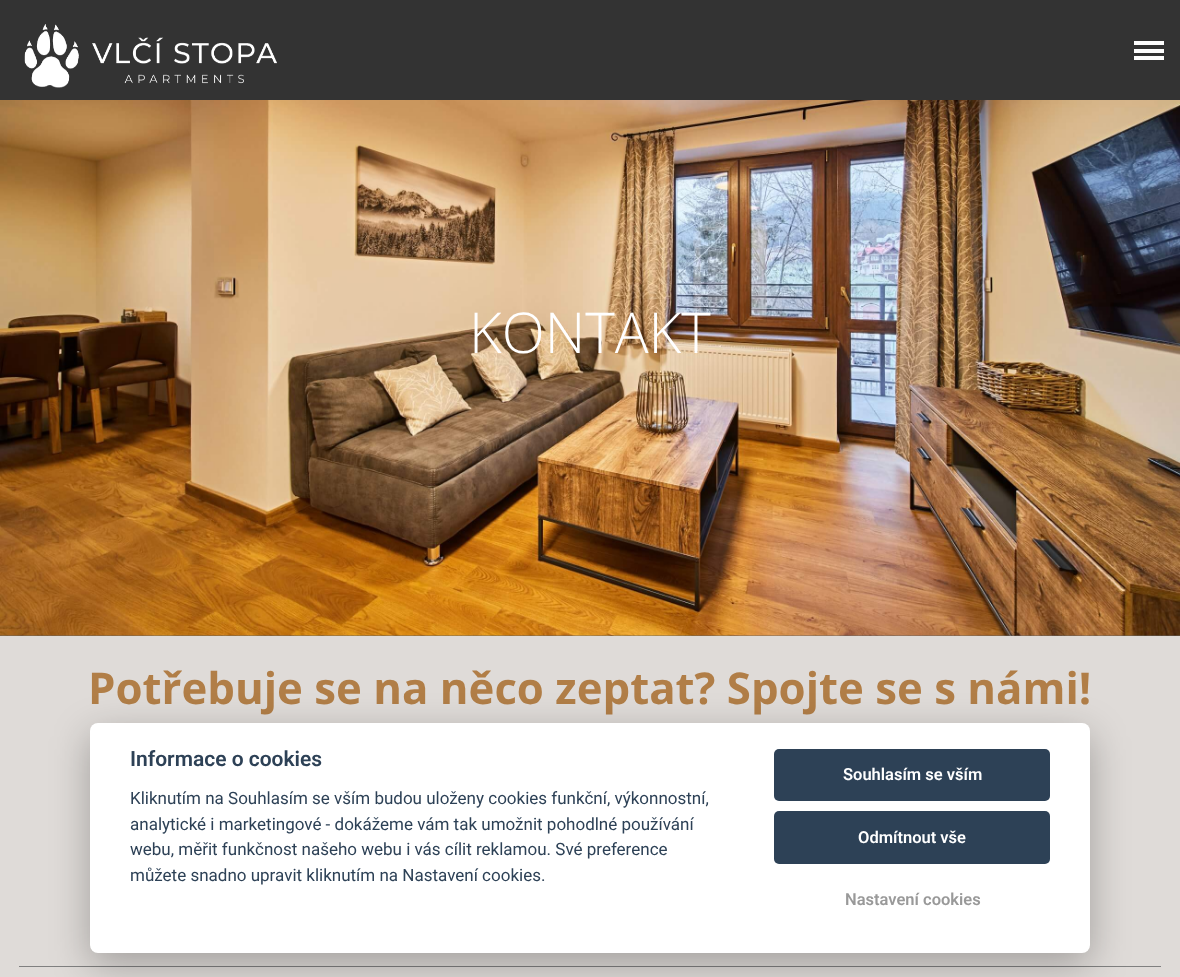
<svg xmlns="http://www.w3.org/2000/svg" width="1180" height="977">
	<rect width="100%" height="100%" fill="#DFDBD8" />
	<rect x="0" y="0" width="1180" height="100" fill="#333333" />
	<image x="24" y="24" width="253" height="64" href="assets/img1.png" />
	<rect x="1134" y="49" width="30" height="4" fill="#FFFFFF" />
	<rect x="1134" y="41" width="30" height="4" fill="#FFFFFF" />
	<rect x="1134" y="56" width="30" height="4" fill="#FFFFFF" />
	<rect x="0" y="635" width="1180" height="1" fill="#666666" />
	<image x="0" y="100" width="1180" height="536" href="assets/img2.png" />
	<text x="469" y="353" font-family="Open Sans" font-size="56.25" font-weight="300" fill="#FFFFFF">KONTAKT</text>
	<text x="88" y="704" font-family="Open Sans" font-size="43.75" font-weight="700" fill="#B17E47">Potřebuje se na něco zeptat? Spojte se s námi!</text>
	<rect x="19" y="966" width="1142" height="1" fill="#808080" />
	<rect x="90" y="735" width="1000" height="230" rx="8" fill="#020203" fill-opacity="0.28" filter="blur(19px)" />
	<rect x="90" y="723" width="1000" height="230" rx="8" fill="#FFFFFF" />
	<text x="130" y="766" font-family="Roboto" font-size="21" font-weight="600" fill="#2D4156">Informace o cookies</text>
	<g font-family="Roboto" font-size="17" fill="#2D4156">
		<text x="130" y="804">Kliknutím na Souhlasím se vším budou uloženy cookies funkční, výkonnostní,</text>
		<text x="130" y="830">analytické i marketingové - dokážeme vám tak umožnit pohodlné používání</text>
		<text x="130" y="855">webu, měřit funkčnost našeho webu i vás cílit reklamou. Své preference</text>
		<text x="130" y="881">můžete snadno upravit kliknutím na Nastavení cookies.</text>
	</g>
	<rect x="774" y="749" width="276" height="52" rx="5" fill="#2D4156" />
	<text x="843" y="780" font-family="Roboto" font-size="16.5" font-weight="600" fill="#FFFFFF">Souhlasím se vším</text>
	<rect x="774" y="811" width="276" height="53" rx="5" fill="#2D4156" />
	<text x="858" y="843" font-family="Roboto" font-size="16.5" font-weight="600" fill="#FFFFFF">Odmítnout vše</text>
	<text x="845" y="905" font-family="Roboto" font-size="16.5" font-weight="600" fill="#999999">Nastavení cookies</text>
</svg>
